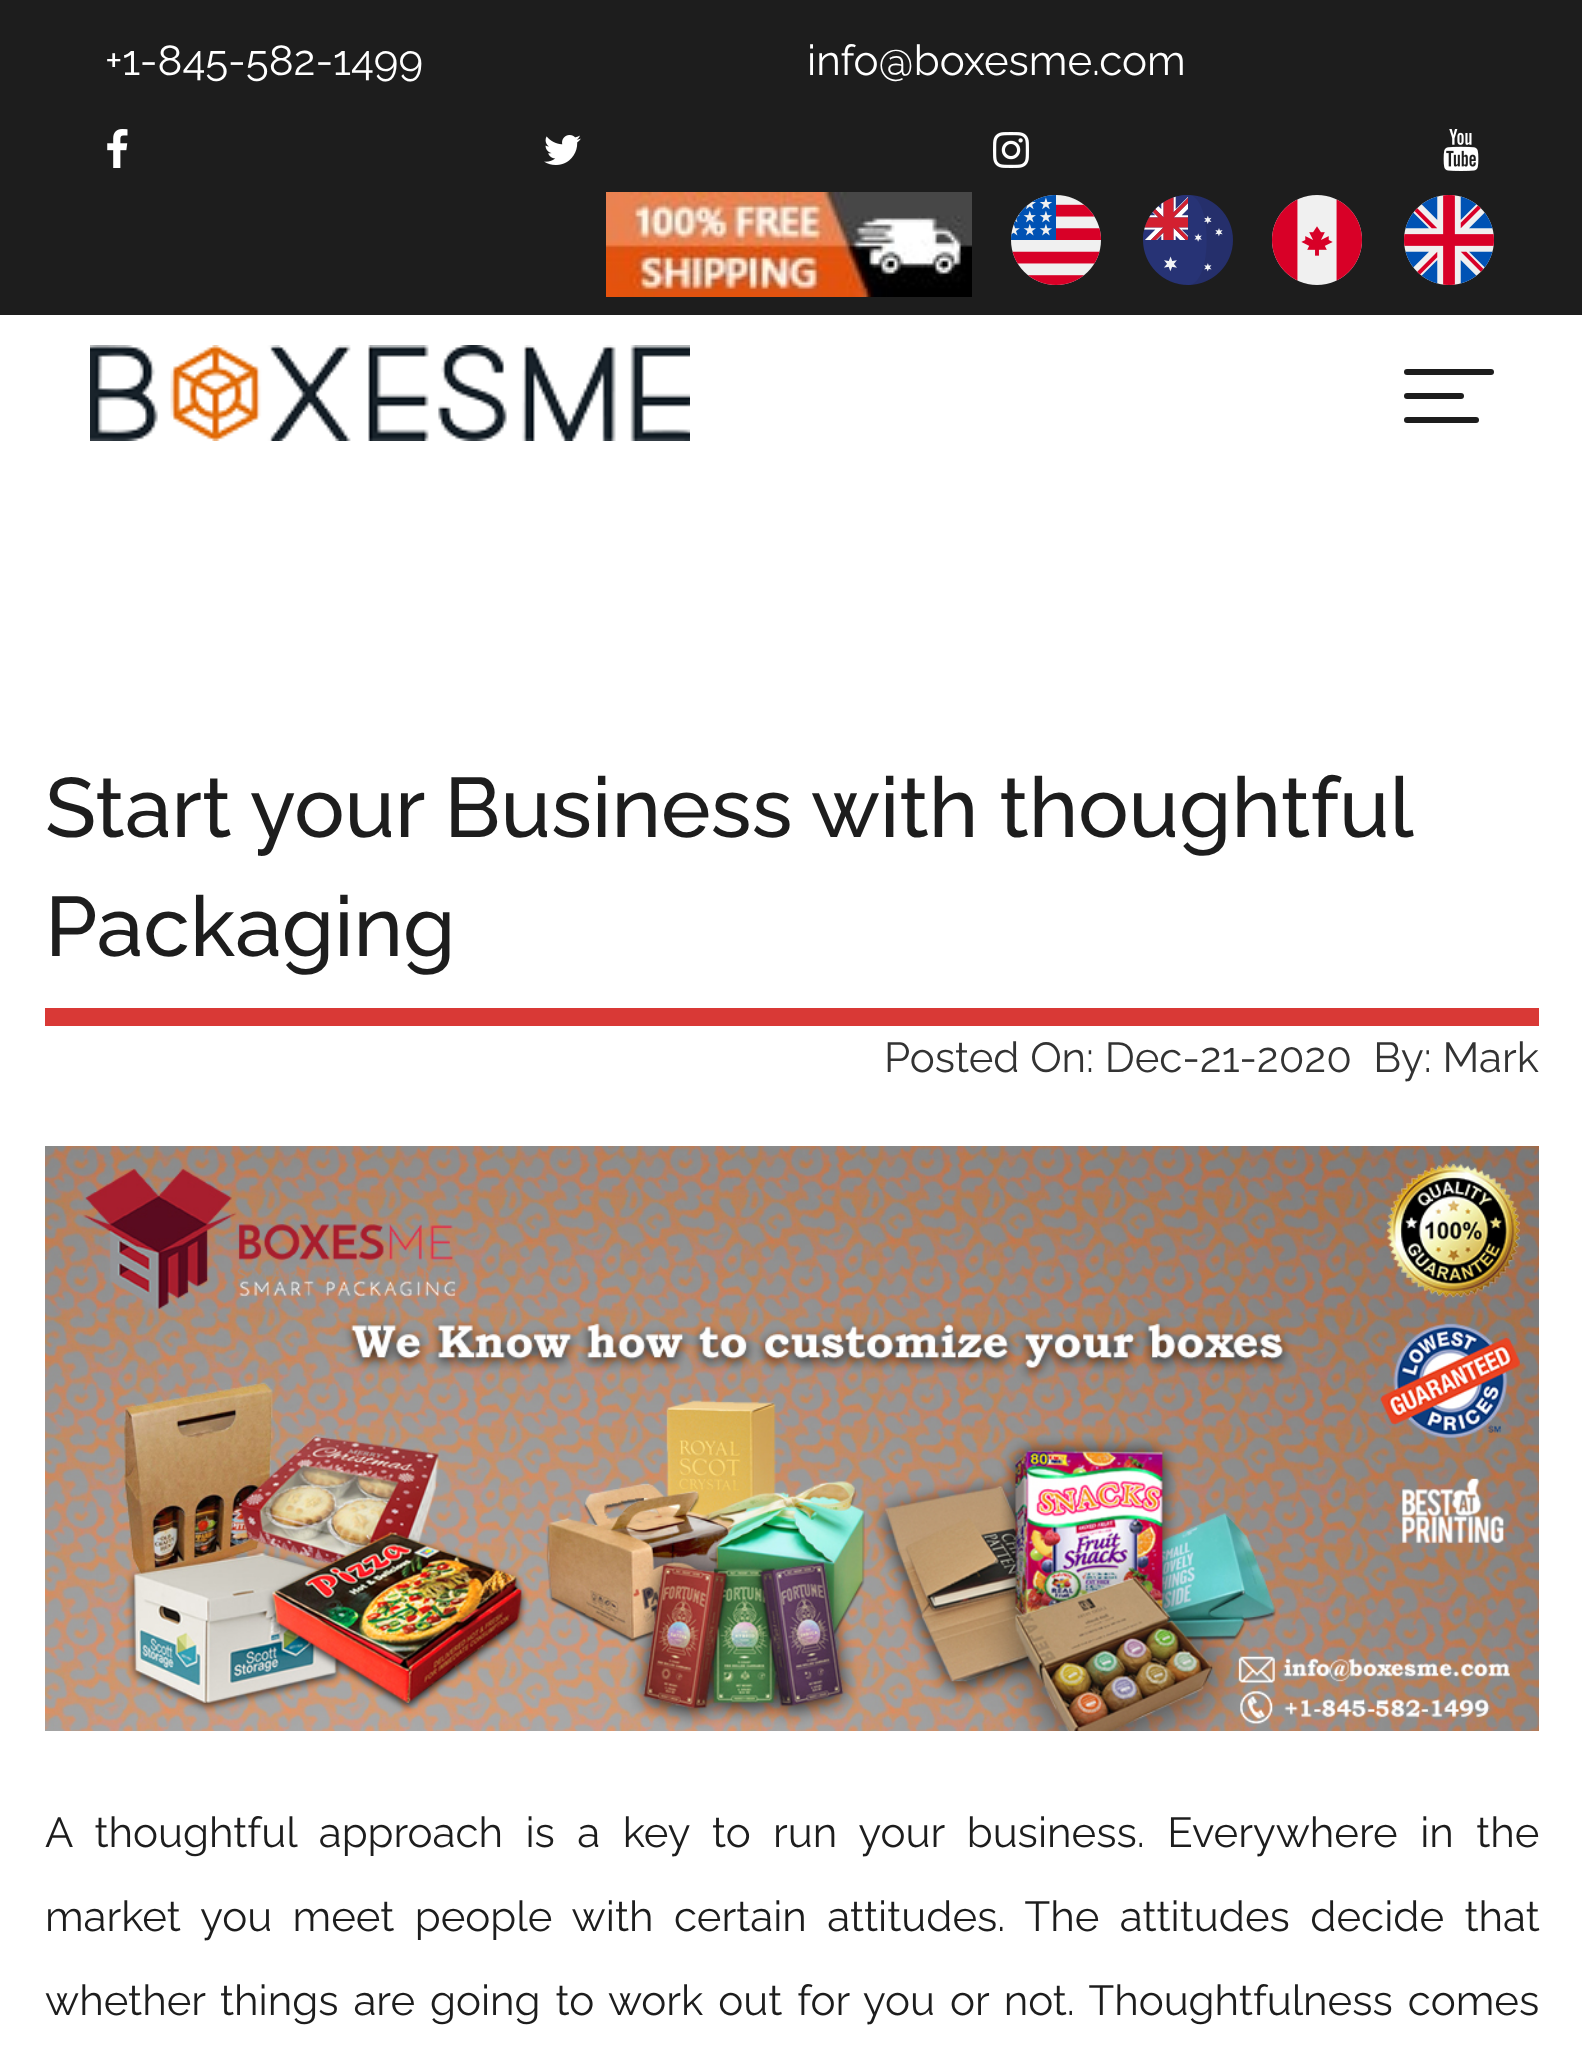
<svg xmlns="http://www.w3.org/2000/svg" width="1582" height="2050">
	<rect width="100%" height="100%" fill="#FFFFFF" />
	<rect x="0" y="0" width="1582" height="315" fill="#1D1D1D" />
	<g font-family="Raleway" font-size="42" fill="#FFFFFF">
		<text x="105" y="75">+1-845-582-1499</text>
		<text x="807" y="75">info@boxesme.com</text>
	</g>
	<image x="107" y="129" width="21" height="39" href="assets/img1.png" />
	<image x="544" y="135" width="37" height="30" href="assets/img2.png" />
	<image x="993" y="132" width="36" height="36" href="assets/img3.png" />
	<image x="1443" y="129" width="36" height="42" href="assets/img4.png" />
	<image x="606" y="192" width="366" height="105" href="assets/img5.png" />
	<image x="1011" y="195" width="90" height="90" href="assets/img6.png" />
	<image x="1143" y="195" width="90" height="90" href="assets/img7.png" />
	<image x="1272" y="195" width="90" height="90" href="assets/img8.png" />
	<image x="1404" y="195" width="90" height="90" href="assets/img9.png" />
	<image x="90" y="345" width="600" height="96" href="assets/img10.png" />
	<rect x="1404" y="369" width="90" height="6" rx="3" fill="#1D1D1D" />
	<rect x="1404" y="393" width="60" height="6" rx="3" fill="#1D1D1D" />
	<rect x="1404" y="417" width="75" height="6" rx="3" fill="#1D1D1D" />
	<rect x="45" y="1008" width="1494" height="18" fill="#D93936" />
	<g font-family="Raleway" font-size="84" font-weight="500" fill="#1D1D1D">
		<text x="45" y="837" word-spacing="-0.5">Start your Business with thoughtful</text>
		<text x="45" y="956">Packaging</text>
	</g>
	<text x="884" y="1072" font-family="Raleway" font-size="42" fill="#333333" xml:space="preserve">Posted On: Dec-21-2020  By: Mark</text>
	<image x="45" y="1146" width="1494" height="585" href="assets/img11.png" />
	<g font-family="Raleway" font-size="42" fill="#1D1D1D">
		<text x="45" y="1847" word-spacing="11.75">A thoughtful approach is a key to run your business. Everywhere in the</text>
		<text x="45" y="1931" word-spacing="9.75">market you meet people with certain attitudes. The attitudes decide that</text>
		<text x="45" y="2015" word-spacing="4.25">whether things are going to work out for you or not. Thoughtfulness comes</text>
	</g>
</svg>
